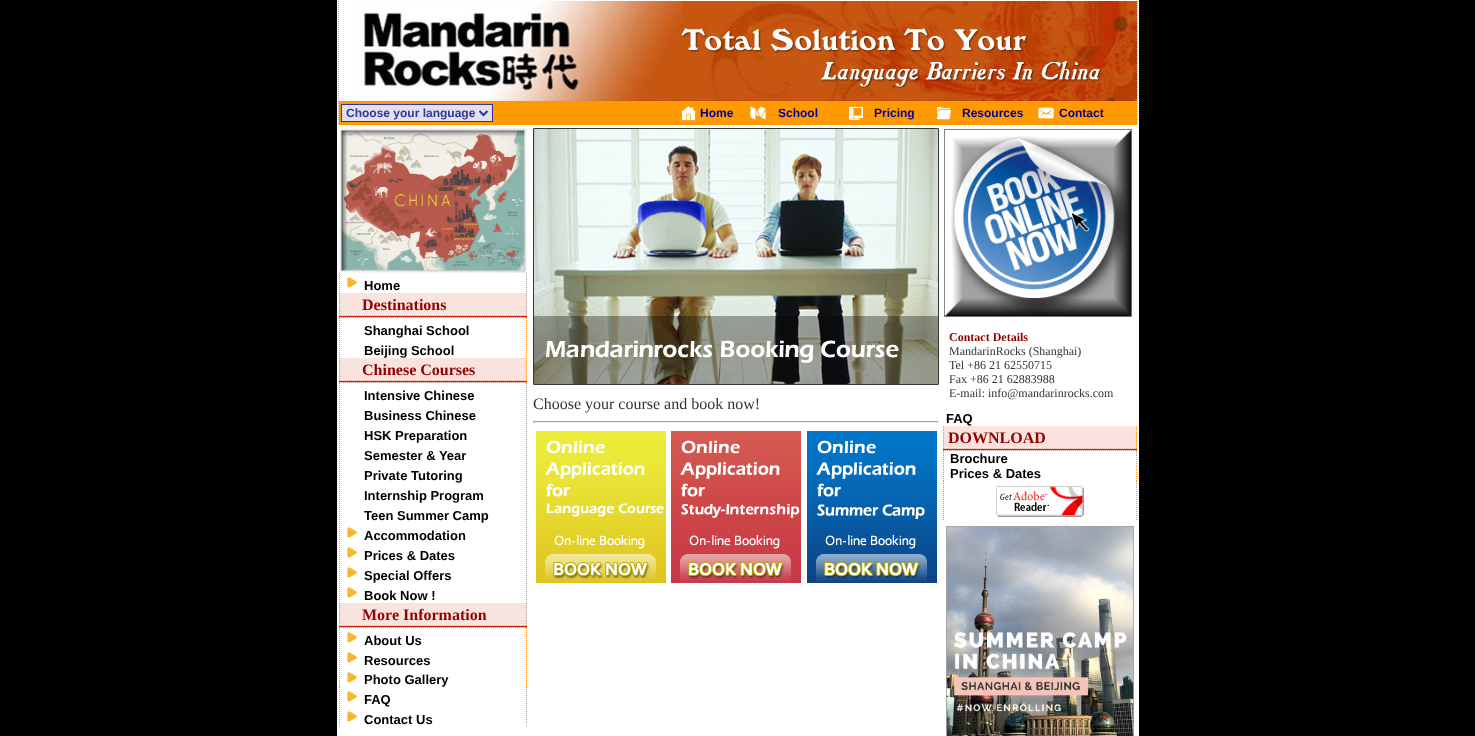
<svg xmlns="http://www.w3.org/2000/svg" width="1475" height="736">
	<rect width="100%" height="100%" fill="#000000" />
	<rect x="337" y="0" width="802" height="126" fill="#FFFFFF" />
	<path d="M1137.5 1V101" fill="none" stroke="#F88E1E" stroke-dasharray="1 1" />
	<path d="M338.5 1V101" fill="none" stroke="#F88E1E" stroke-dasharray="1 1" />
	<image x="352" y="1" width="785" height="100" href="assets/img1.png" />
	<path d="M1137.5 101V125" fill="none" stroke="#F88E1E" stroke-dasharray="1 1" />
	<path d="M338.5 101V125" fill="none" stroke="#F88E1E" stroke-dasharray="1 1" />
	<rect x="339" y="101" width="798" height="24" fill="#FF9900" />
	<rect x="341.5" y="104.5" width="151" height="17" fill="#E0E0EF" stroke="#333399" />
	<path d="M479.5 111L483.5 115L487.5 111" fill="none" stroke="#333399" stroke-width="2" />
	<text x="346" y="117" font-family="Liberation Sans" font-size="12" font-weight="700" fill="#333399">Choose your language</text>
	<image x="681" y="106" width="15" height="15" href="assets/img2.png" />
	<text x="700" y="117" font-family="Liberation Sans" font-size="12" font-weight="700" fill="#000099">Home</text>
	<image x="750" y="106" width="16" height="14" href="assets/img3.png" />
	<text x="778" y="117" font-family="Liberation Sans" font-size="12" font-weight="700" fill="#000099">School</text>
	<image x="849" y="106" width="14" height="14" href="assets/img4.png" />
	<text x="874" y="117" font-family="Liberation Sans" font-size="12" font-weight="700" fill="#000099">Pricing</text>
	<image x="937" y="107" width="14" height="13" href="assets/img5.png" />
	<text x="962" y="117" font-family="Liberation Sans" font-size="12" font-weight="700" fill="#000099">Resources</text>
	<image x="1037" y="107" width="18" height="12" href="assets/img6.png" />
	<text x="1059" y="117" font-family="Liberation Sans" font-size="12" font-weight="700" fill="#000099">Contact</text>
	<rect x="337" y="126" width="802" height="610" fill="#FFFFFF" />
	<image x="339" y="128" width="188" height="145" href="assets/img7.png" />
	<path d="M526.5 273V293" fill="none" stroke="#F88E1E" stroke-dasharray="1 1" />
	<path d="M339.5 273V293" fill="none" stroke="#F88E1E" stroke-dasharray="1 1" />
	<image x="347" y="277" width="10" height="11" href="assets/img8.png" />
	<text x="364" y="290" font-family="Liberation Sans" font-size="13" font-weight="700" fill="#000000">Home</text>
	<image x="339" y="293" width="188" height="25" href="assets/img9.png" />
	<path d="M526.5 293V318" fill="none" stroke="#F88E1E" stroke-dasharray="1 1" />
	<path d="M339 317.5H527" fill="none" stroke="#F88E1E" stroke-dasharray="1 1" />
	<path d="M339.5 293V318" fill="none" stroke="#F88E1E" stroke-dasharray="1 1" />
	<text x="362" y="310" font-family="Liberation Serif" font-size="16" font-weight="700" fill="#930000">Destinations</text>
	<path d="M526.5 318V338" fill="none" stroke="#F88E1E" stroke-dasharray="1 1" />
	<path d="M339.5 318V338" fill="none" stroke="#F88E1E" stroke-dasharray="1 1" />
	<text x="364" y="335" font-family="Liberation Sans" font-size="13" font-weight="700" fill="#000000">Shanghai School</text>
	<path d="M526.5 338V358" fill="none" stroke="#F88E1E" stroke-dasharray="1 1" />
	<path d="M339.5 338V358" fill="none" stroke="#F88E1E" stroke-dasharray="1 1" />
	<text x="364" y="355" font-family="Liberation Sans" font-size="13" font-weight="700" fill="#000000">Beijing School</text>
	<image x="339" y="358" width="188" height="25" href="assets/img9.png" />
	<path d="M526.5 358V383" fill="none" stroke="#F88E1E" stroke-dasharray="1 1" />
	<path d="M339 382.5H527" fill="none" stroke="#F88E1E" stroke-dasharray="1 1" />
	<path d="M339.5 358V383" fill="none" stroke="#F88E1E" stroke-dasharray="1 1" />
	<text x="362" y="375" font-family="Liberation Serif" font-size="16" font-weight="700" fill="#930000">Chinese Courses</text>
	<path d="M526.5 383V403" fill="none" stroke="#F88E1E" stroke-dasharray="1 1" />
	<path d="M339.5 383V403" fill="none" stroke="#F88E1E" stroke-dasharray="1 1" />
	<text x="364" y="400" font-family="Liberation Sans" font-size="13" font-weight="700" fill="#000000">Intensive Chinese</text>
	<path d="M526.5 403V423" fill="none" stroke="#F88E1E" stroke-dasharray="1 1" />
	<path d="M339.5 403V423" fill="none" stroke="#F88E1E" stroke-dasharray="1 1" />
	<text x="364" y="420" font-family="Liberation Sans" font-size="13" font-weight="700" fill="#000000">Business Chinese</text>
	<path d="M526.5 423V443" fill="none" stroke="#F88E1E" stroke-dasharray="1 1" />
	<path d="M339.5 423V443" fill="none" stroke="#F88E1E" stroke-dasharray="1 1" />
	<text x="364" y="440" font-family="Liberation Sans" font-size="13" font-weight="700" fill="#000000">HSK Preparation</text>
	<path d="M526.5 443V463" fill="none" stroke="#F88E1E" stroke-dasharray="1 1" />
	<path d="M339.5 443V463" fill="none" stroke="#F88E1E" stroke-dasharray="1 1" />
	<text x="364" y="460" font-family="Liberation Sans" font-size="13" font-weight="700" fill="#000000">Semester &amp; Year</text>
	<path d="M526.5 463V483" fill="none" stroke="#F88E1E" stroke-dasharray="1 1" />
	<path d="M339.5 463V483" fill="none" stroke="#F88E1E" stroke-dasharray="1 1" />
	<text x="364" y="480" font-family="Liberation Sans" font-size="13" font-weight="700" fill="#000000">Private Tutoring</text>
	<path d="M526.5 483V503" fill="none" stroke="#F88E1E" stroke-dasharray="1 1" />
	<path d="M339.5 483V503" fill="none" stroke="#F88E1E" stroke-dasharray="1 1" />
	<text x="364" y="500" font-family="Liberation Sans" font-size="13" font-weight="700" fill="#000000">Internship Program</text>
	<path d="M526.5 503V523" fill="none" stroke="#F88E1E" stroke-dasharray="1 1" />
	<path d="M339.5 503V523" fill="none" stroke="#F88E1E" stroke-dasharray="1 1" />
	<text x="364" y="520" font-family="Liberation Sans" font-size="13" font-weight="700" fill="#000000">Teen Summer Camp</text>
	<path d="M526.5 523V543" fill="none" stroke="#F88E1E" stroke-dasharray="1 1" />
	<path d="M339.5 523V543" fill="none" stroke="#F88E1E" stroke-dasharray="1 1" />
	<image x="347" y="527" width="10" height="11" href="assets/img8.png" />
	<text x="364" y="540" font-family="Liberation Sans" font-size="13" font-weight="700" fill="#000000">Accommodation</text>
	<path d="M526.5 543V563" fill="none" stroke="#F88E1E" stroke-dasharray="1 1" />
	<path d="M339.5 543V563" fill="none" stroke="#F88E1E" stroke-dasharray="1 1" />
	<image x="347" y="547" width="10" height="11" href="assets/img8.png" />
	<text x="364" y="560" font-family="Liberation Sans" font-size="13" font-weight="700" fill="#000000">Prices &amp; Dates</text>
	<path d="M526.5 563V583" fill="none" stroke="#F88E1E" stroke-dasharray="1 1" />
	<path d="M339.5 563V583" fill="none" stroke="#F88E1E" stroke-dasharray="1 1" />
	<image x="347" y="567" width="10" height="11" href="assets/img8.png" />
	<text x="364" y="580" font-family="Liberation Sans" font-size="13" font-weight="700" fill="#000000">Special Offers</text>
	<path d="M526.5 583V603" fill="none" stroke="#F88E1E" stroke-dasharray="1 1" />
	<path d="M339.5 583V603" fill="none" stroke="#F88E1E" stroke-dasharray="1 1" />
	<image x="347" y="587" width="10" height="11" href="assets/img8.png" />
	<text x="364" y="600" font-family="Liberation Sans" font-size="13" font-weight="700" fill="#000000">Book Now !</text>
	<image x="339" y="603" width="188" height="25" href="assets/img9.png" />
	<path d="M526.5 603V628" fill="none" stroke="#F88E1E" stroke-dasharray="1 1" />
	<path d="M339 627.5H527" fill="none" stroke="#F88E1E" stroke-dasharray="1 1" />
	<path d="M339.5 603V628" fill="none" stroke="#F88E1E" stroke-dasharray="1 1" />
	<text x="362" y="620" font-family="Liberation Serif" font-size="16" font-weight="700" fill="#930000">More Information</text>
	<path d="M526.5 628V648" fill="none" stroke="#F88E1E" stroke-dasharray="1 1" />
	<path d="M339.5 628V648" fill="none" stroke="#F88E1E" stroke-dasharray="1 1" />
	<image x="347" y="632" width="10" height="11" href="assets/img8.png" />
	<text x="364" y="645" font-family="Liberation Sans" font-size="13" font-weight="700" fill="#000000">About Us</text>
	<path d="M526.5 648V668" fill="none" stroke="#F88E1E" stroke-dasharray="1 1" />
	<path d="M339.5 648V668" fill="none" stroke="#F88E1E" stroke-dasharray="1 1" />
	<image x="347" y="652" width="10" height="11" href="assets/img8.png" />
	<text x="364" y="665" font-family="Liberation Sans" font-size="13" font-weight="700" fill="#000000">Resources</text>
	<path d="M526.5 668V687" fill="none" stroke="#F88E1E" stroke-dasharray="1 1" />
	<path d="M339.5 668V687" fill="none" stroke="#F88E1E" stroke-dasharray="1 1" />
	<image x="347" y="672" width="10" height="11" href="assets/img8.png" />
	<text x="364" y="684" font-family="Liberation Sans" font-size="13" font-weight="700" fill="#000000">Photo Gallery</text>
	<path d="M526.5 687V707" fill="none" stroke="#F88E1E" stroke-dasharray="1 1" />
	<path d="M339.5 687V707" fill="none" stroke="#F88E1E" stroke-dasharray="1 1" />
	<image x="347" y="691" width="10" height="11" href="assets/img8.png" />
	<text x="364" y="704" font-family="Liberation Sans" font-size="13" font-weight="700" fill="#000000">FAQ</text>
	<path d="M526.5 707V727" fill="none" stroke="#F88E1E" stroke-dasharray="1 1" />
	<path d="M339.5 707V727" fill="none" stroke="#F88E1E" stroke-dasharray="1 1" />
	<image x="347" y="711" width="10" height="11" href="assets/img8.png" />
	<text x="364" y="724" font-family="Liberation Sans" font-size="13" font-weight="700" fill="#000000">Contact Us</text>
	<image x="533" y="128" width="406" height="257" href="assets/img10.png" />
	<text x="533" y="409" font-family="Liberation Serif" font-size="16" fill="#333333">Choose your course and book now!</text>
	<rect x="533" y="421" width="406" height="1" fill="#9F9F9F" />
	<rect x="938" y="421" width="1" height="2" fill="#EEEEEE" />
	<rect x="533" y="422" width="406" height="1" fill="#EEEEEE" />
	<rect x="533" y="421" width="1" height="2" fill="#9F9F9F" />
	<image x="536" y="431" width="130" height="152" href="assets/img11.png" />
	<image x="671" y="431" width="130" height="152" href="assets/img12.png" />
	<image x="807" y="431" width="130" height="152" href="assets/img13.png" />
	<image x="944" y="129" width="188" height="188" href="assets/img14.png" />
	<text x="949" y="341" font-family="Liberation Serif" font-size="12" font-weight="700" fill="#930000">Contact Details</text>
	<g font-family="Liberation Serif" font-size="12" fill="#333333">
		<text x="949" y="355">MandarinRocks (Shanghai)</text>
		<text x="949" y="369">Tel +86 21 62550715</text>
		<text x="949" y="383">Fax +86 21 62883988</text>
		<text x="949" y="397">E-mail: info@mandarinrocks.com</text>
	</g>
	<text x="946" y="423" font-family="Liberation Sans" font-size="13" font-weight="700" fill="#000000">FAQ</text>
	<image x="943" y="426" width="194" height="25" href="assets/img15.png" />
	<path d="M1136.5 426V451" fill="none" stroke="#F88E1E" stroke-dasharray="1 1" />
	<path d="M943 450.5H1137" fill="none" stroke="#F88E1E" stroke-dasharray="1 1" />
	<path d="M943.5 426V451" fill="none" stroke="#F88E1E" stroke-dasharray="1 1" />
	<text x="948" y="443" font-family="Liberation Serif" font-size="16" font-weight="700" fill="#930000">DOWNLOAD</text>
	<path d="M1136.5 451V466" fill="none" stroke="#F88E1E" stroke-dasharray="1 1" />
	<path d="M943.5 451V466" fill="none" stroke="#F88E1E" stroke-dasharray="1 1" />
	<text x="950" y="463" font-family="Liberation Sans" font-size="13" font-weight="700" fill="#000000">Brochure</text>
	<path d="M1136.5 466V481" fill="none" stroke="#F88E1E" stroke-dasharray="1 1" />
	<path d="M943.5 466V481" fill="none" stroke="#F88E1E" stroke-dasharray="1 1" />
	<text x="950" y="478" font-family="Liberation Sans" font-size="13" font-weight="700" fill="#000000">Prices &amp; Dates</text>
	<path d="M1136.5 481V521" fill="none" stroke="#F88E1E" stroke-dasharray="1 1" />
	<path d="M943.5 481V521" fill="none" stroke="#F88E1E" stroke-dasharray="1 1" />
	<image x="996" y="486" width="88" height="31" href="assets/img16.png" />
	<image x="946" y="526" width="188" height="210" href="assets/img17.png" />
</svg>
